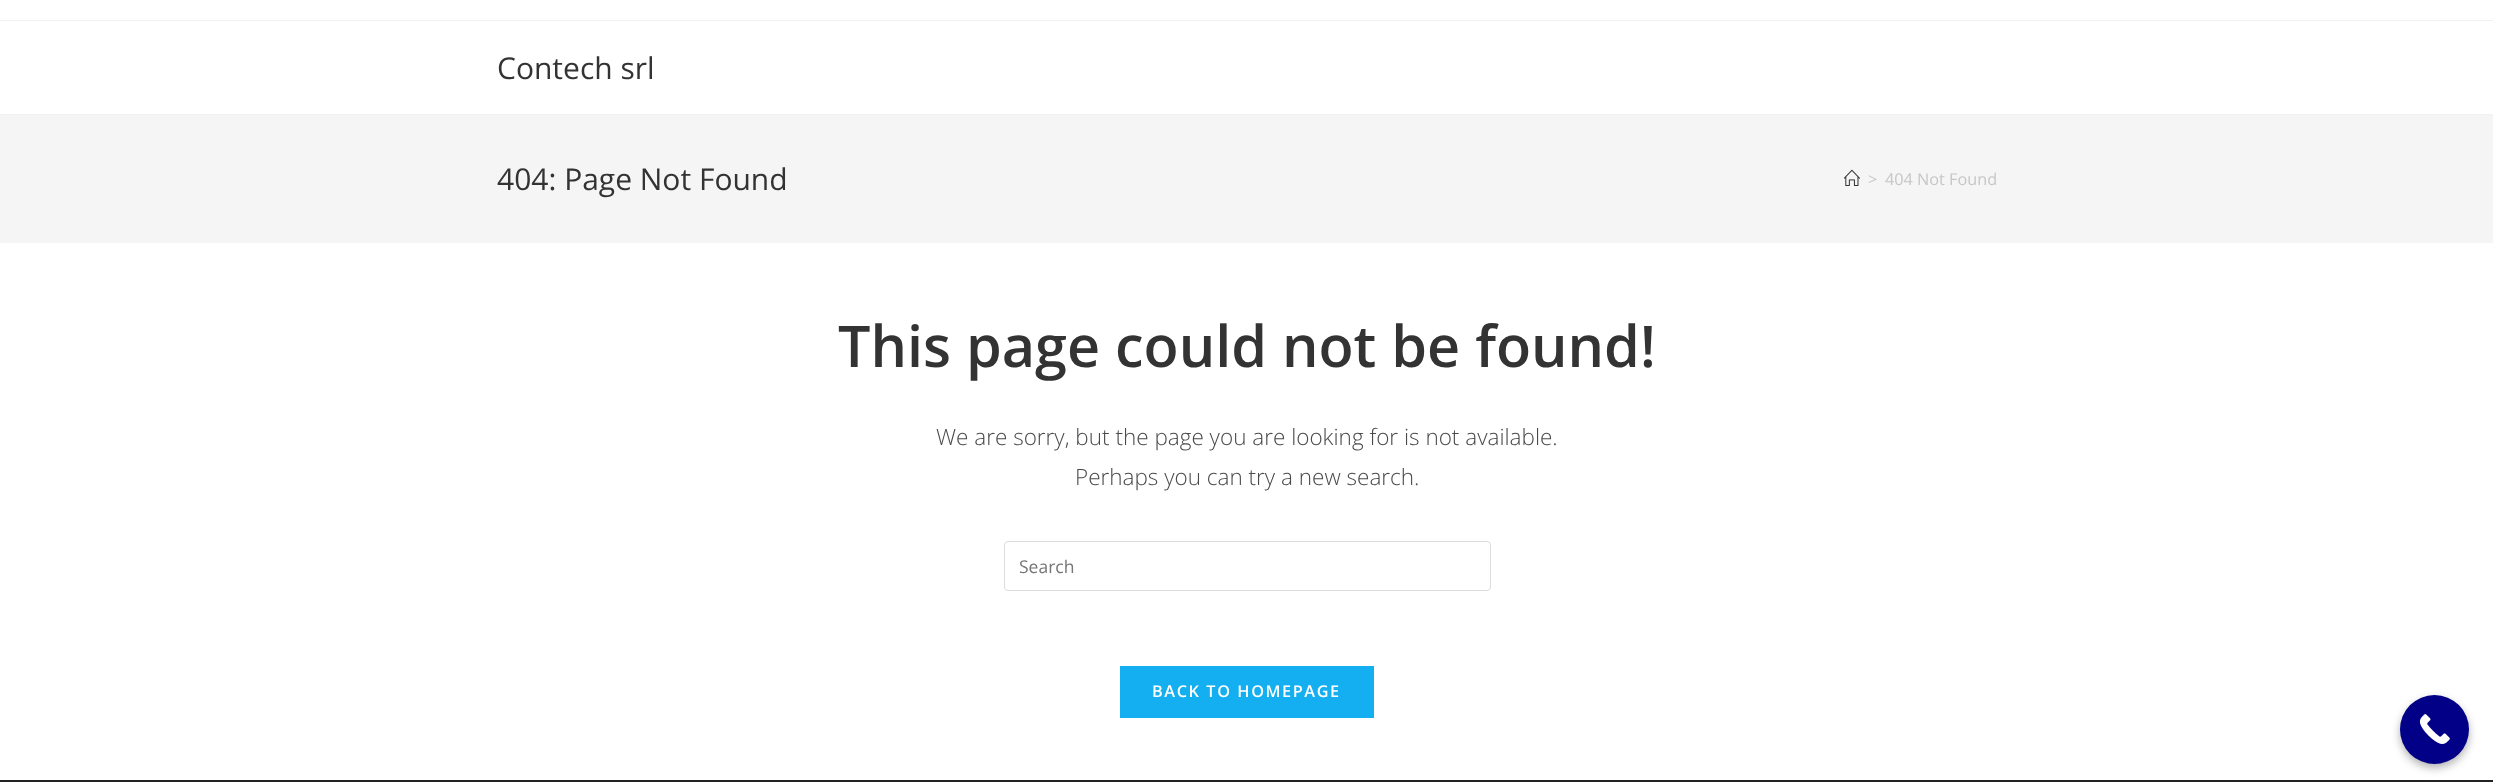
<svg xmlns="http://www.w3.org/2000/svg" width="2493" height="782">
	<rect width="100%" height="100%" fill="#FFFFFF" />
	<rect x="0" y="20" width="2493" height="1" fill="#F1F1F1" />
	<rect x="0" y="114" width="2493" height="1" fill="#F1F1F1" />
	<text x="497" y="79" font-family="Open Sans" font-size="30" fill="#333333">Contech srl</text>
	<rect x="0" y="115" width="2493" height="128" fill="#F5F5F5" />
	<text x="497" y="190" font-family="Open Sans" font-size="30" fill="#333333">404: Page Not Found</text>
	<image x="1844" y="169" width="16" height="17" href="assets/img1.png" />
	<g font-family="Open Sans" font-size="16.25" fill="#C6C6C6">
		<text x="1868" y="185">&gt;</text>
		<text x="1885" y="185">404 Not Found</text>
	</g>
	<text x="838" y="367" font-family="Open Sans" font-size="57.5" font-weight="600" fill="#333333">This page could not be found!</text>
	<g font-family="Open Sans" font-size="22.5" font-weight="300" fill="#4A4A4A">
		<text x="936" y="445">We are sorry, but the page you are looking for is not available.</text>
		<text x="1075" y="485">Perhaps you can try a new search.</text>
	</g>
	<rect x="1004.5" y="541.5" width="486" height="49" rx="3.5" fill="none" stroke="#DDDDDD" />
	<text x="1019" y="573" font-family="Open Sans" font-size="17.5" fill="#757575">Search</text>
	<rect x="1120" y="666" width="254" height="52" fill="#13AFF0" />
	<text x="1152" y="697" font-family="Open Sans" font-size="16.25" font-weight="600" letter-spacing="1.6" fill="#FFFFFF">BACK TO HOMEPAGE</text>
	<rect x="0" y="780" width="2493" height="2" fill="#222222" />
	<rect x="2400" y="699" width="69" height="69" rx="34.5" fill="#000000" fill-opacity="0.3" filter="blur(4px)" />
	<circle cx="2434.5" cy="729.5" r="34.5" fill="#010087" />
	<image x="2419" y="714" width="31" height="30" href="assets/img2.png" />
</svg>
